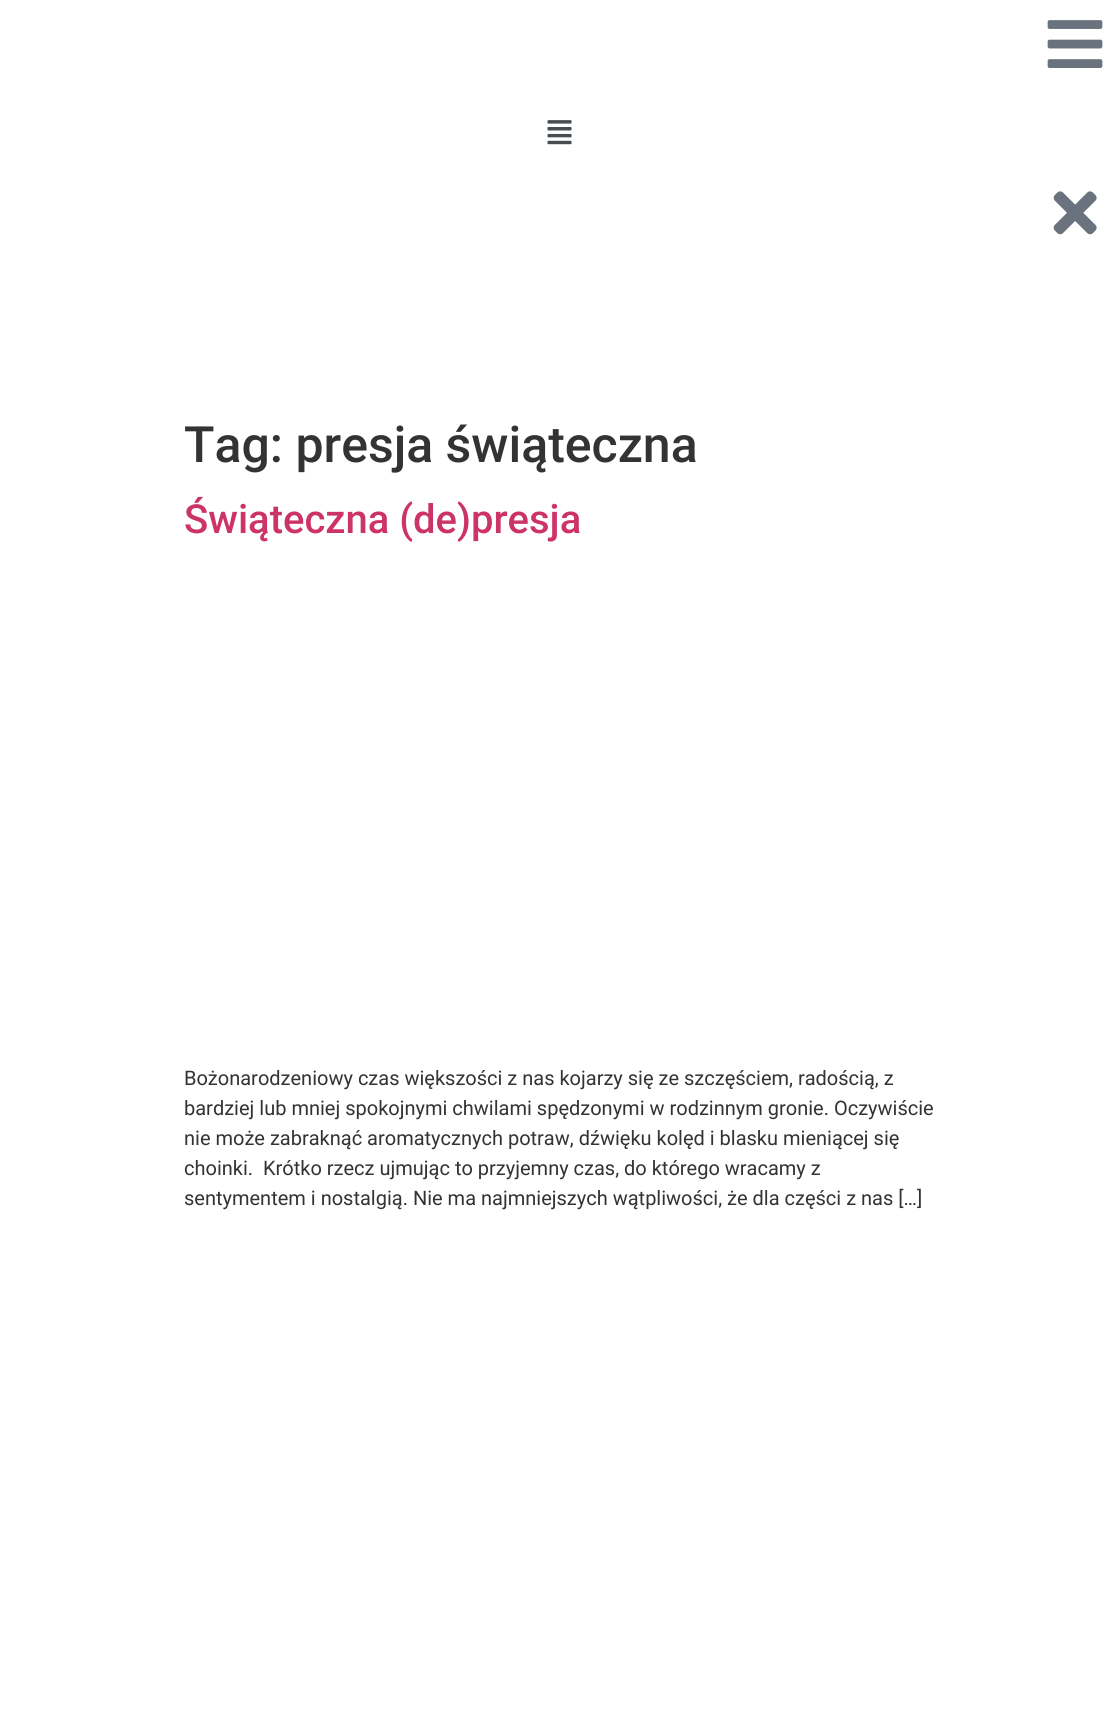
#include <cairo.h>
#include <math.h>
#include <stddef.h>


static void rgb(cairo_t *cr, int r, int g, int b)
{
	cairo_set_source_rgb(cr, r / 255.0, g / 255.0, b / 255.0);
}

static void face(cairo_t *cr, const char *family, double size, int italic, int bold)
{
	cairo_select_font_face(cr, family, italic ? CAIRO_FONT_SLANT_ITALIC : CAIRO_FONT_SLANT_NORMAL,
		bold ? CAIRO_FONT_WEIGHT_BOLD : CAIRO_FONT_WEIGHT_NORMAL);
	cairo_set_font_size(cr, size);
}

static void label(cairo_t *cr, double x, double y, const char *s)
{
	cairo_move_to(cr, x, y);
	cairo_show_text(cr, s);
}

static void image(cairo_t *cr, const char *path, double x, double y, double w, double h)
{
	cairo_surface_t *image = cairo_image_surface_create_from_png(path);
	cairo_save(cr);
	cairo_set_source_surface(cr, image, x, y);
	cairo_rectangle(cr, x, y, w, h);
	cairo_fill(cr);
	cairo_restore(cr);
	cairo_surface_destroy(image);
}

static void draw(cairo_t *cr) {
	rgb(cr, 255, 255, 255);
	cairo_paint(cr);
	image(cr, "image0.png", 1047, 20, 56, 48);
	image(cr, "image1.png", 547, 120, 25, 25);
	image(cr, "image2.png", 1053, 191, 44, 44);
	face(cr, "Roboto Medium", 50, 0, 0);
	rgb(cr, 51, 51, 51);
	label(cr, 184, 462, "Tag: presja świąteczna");
	face(cr, "Roboto Medium", 40, 0, 0);
	rgb(cr, 204, 51, 102);
	label(cr, 184, 533, "Świąteczna (de)presja");
	face(cr, "Roboto", 20, 0, 0);
	rgb(cr, 51, 51, 51);
	label(cr, 184, 1085, "Bożonarodzeniowy czas większości z nas kojarzy się ze szczęściem, radością, z");
	label(cr, 184, 1115, "bardziej lub mniej spokojnymi chwilami spędzonymi w rodzinnym gronie. Oczywiście");
	label(cr, 184, 1145, "nie może zabraknąć aromatycznych potraw, dźwięku kolęd i blasku mieniącej się");
	label(cr, 184, 1175, "choinki.  Krótko rzecz ujmując to przyjemny czas, do którego wracamy z");
	label(cr, 184, 1205, "sentymentem i nostalgią. Nie ma najmniejszych wątpliwości, że dla części z nas […]");
}

int main(void) {
	cairo_surface_t *surface = cairo_image_surface_create(CAIRO_FORMAT_RGB24, 1118, 1715);
	cairo_t *cr = cairo_create(surface);
	cairo_font_options_t *options = cairo_font_options_create();
	cairo_font_options_set_hint_metrics(options, CAIRO_HINT_METRICS_OFF);
	cairo_font_options_set_hint_style(options, CAIRO_HINT_STYLE_NONE);
	cairo_set_font_options(cr, options);
	cairo_set_miter_limit(cr, 4);
	draw(cr);
	cairo_surface_write_to_png(surface, "render.png");
	cairo_font_options_destroy(options);
	cairo_destroy(cr);
	cairo_surface_destroy(surface);
	return 0;
}
